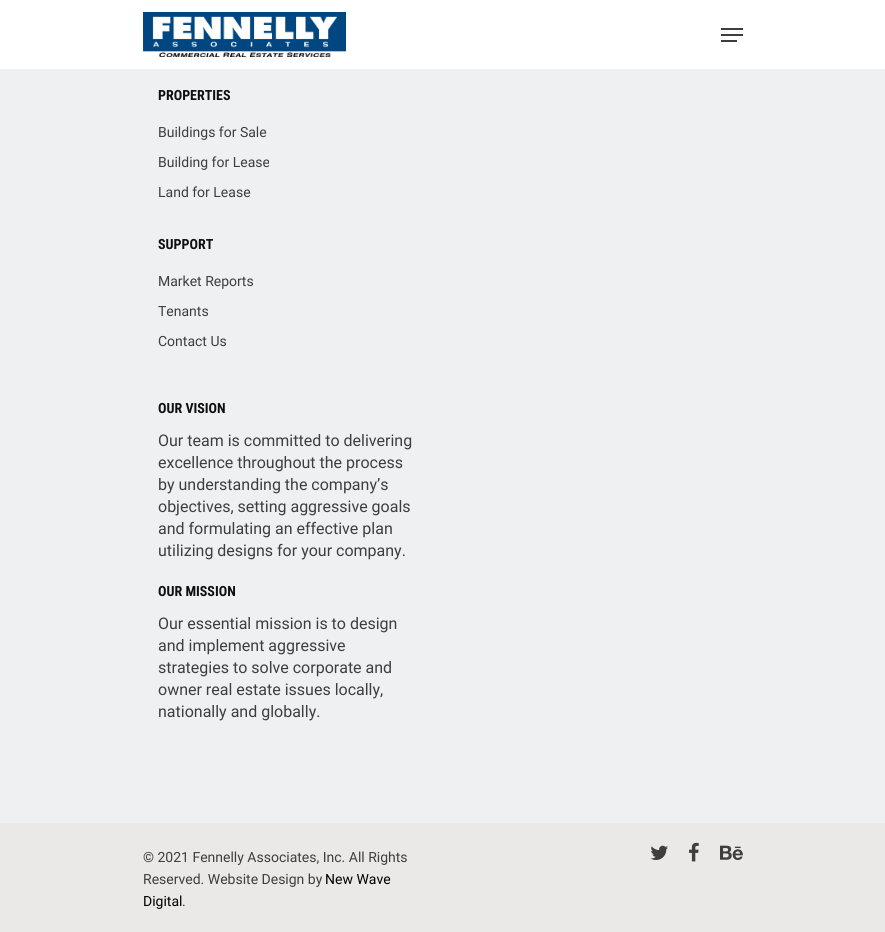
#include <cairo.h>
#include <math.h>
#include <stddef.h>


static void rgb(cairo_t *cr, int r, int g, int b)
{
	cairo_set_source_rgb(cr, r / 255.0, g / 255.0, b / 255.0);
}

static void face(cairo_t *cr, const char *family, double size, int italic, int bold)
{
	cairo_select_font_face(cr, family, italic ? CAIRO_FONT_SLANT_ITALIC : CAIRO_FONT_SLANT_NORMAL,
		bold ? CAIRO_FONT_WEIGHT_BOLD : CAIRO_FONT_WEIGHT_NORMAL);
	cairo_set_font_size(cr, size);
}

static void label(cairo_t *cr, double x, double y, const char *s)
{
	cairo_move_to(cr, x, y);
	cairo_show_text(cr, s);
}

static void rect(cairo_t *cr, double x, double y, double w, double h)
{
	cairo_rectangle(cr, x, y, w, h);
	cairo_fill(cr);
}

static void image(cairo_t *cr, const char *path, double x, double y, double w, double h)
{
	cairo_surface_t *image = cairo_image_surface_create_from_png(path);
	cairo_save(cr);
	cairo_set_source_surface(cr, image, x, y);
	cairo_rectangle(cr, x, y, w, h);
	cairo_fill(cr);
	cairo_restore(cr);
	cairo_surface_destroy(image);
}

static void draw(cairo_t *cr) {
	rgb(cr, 239, 240, 242);
	cairo_paint(cr);
	rgb(cr, 255, 255, 255);
	rect(cr, 0, 0, 885, 69);
	image(cr, "image0.png", 143, 12, 203, 45);
	rgb(cr, 63, 62, 62);
	rect(cr, 721, 28, 22, 2);
	rect(cr, 721, 40, 16, 2);
	rect(cr, 721, 34, 22, 2);
	face(cr, "Roboto Condensed", 14, 0, 1);
	rgb(cr, 15, 15, 15);
	label(cr, 158, 100, "PROPERTIES");
	face(cr, "Roboto", 14, 0, 0);
	rgb(cr, 63, 62, 62);
	label(cr, 158, 137, "Buildings for Sale");
	label(cr, 158, 167, "Building for Lease");
	label(cr, 158, 197, "Land for Lease");
	face(cr, "Roboto Condensed", 14, 0, 1);
	rgb(cr, 15, 15, 15);
	label(cr, 158, 249, "SUPPORT");
	face(cr, "Roboto", 14, 0, 0);
	rgb(cr, 63, 62, 62);
	label(cr, 158, 286, "Market Reports");
	label(cr, 158, 316, "Tenants");
	label(cr, 158, 346, "Contact Us");
	face(cr, "Roboto Condensed", 14, 0, 1);
	rgb(cr, 15, 15, 15);
	label(cr, 158, 413, "OUR VISION");
	face(cr, "Roboto", 16, 0, 0);
	rgb(cr, 63, 62, 62);
	label(cr, 158, 446, "Our team is committed to delivering");
	label(cr, 158, 468, "excellence throughout the process");
	label(cr, 158, 490, "by understanding the company’s");
	label(cr, 158, 512, "objectives, setting aggressive goals");
	label(cr, 158, 534, "and formulating an effective plan");
	label(cr, 158, 556, "utilizing designs for your company.");
	face(cr, "Roboto Condensed", 14, 0, 1);
	rgb(cr, 15, 15, 15);
	label(cr, 158, 596, "OUR MISSION");
	face(cr, "Roboto", 16, 0, 0);
	rgb(cr, 63, 62, 62);
	label(cr, 158, 629, "Our essential mission is to design");
	label(cr, 158, 651, "and implement aggressive");
	label(cr, 158, 673, "strategies to solve corporate and");
	label(cr, 158, 695, "owner real estate issues locally,");
	label(cr, 158, 717, "nationally and globally.");
	rgb(cr, 234, 233, 232);
	rect(cr, 0, 823, 885, 109);
	face(cr, "Roboto", 14, 0, 0);
	rgb(cr, 63, 62, 62);
	label(cr, 143, 862, "© 2021 Fennelly Associates, Inc. All Rights");
	label(cr, 143, 884, "Reserved. Website Design by");
	rgb(cr, 0, 0, 0);
	label(cr, 325, 884, "New Wave");
	label(cr, 143, 906, "Digital");
	rgb(cr, 63, 62, 62);
	label(cr, 182, 906, ".");
	image(cr, "image1.png", 650, 845, 18, 15);
	image(cr, "image2.png", 689, 842, 10, 20);
	image(cr, "image3.png", 720, 845, 23, 15);
}

int main(void) {
	cairo_surface_t *surface = cairo_image_surface_create(CAIRO_FORMAT_RGB24, 885, 932);
	cairo_t *cr = cairo_create(surface);
	cairo_font_options_t *options = cairo_font_options_create();
	cairo_font_options_set_hint_metrics(options, CAIRO_HINT_METRICS_OFF);
	cairo_font_options_set_hint_style(options, CAIRO_HINT_STYLE_NONE);
	cairo_set_font_options(cr, options);
	cairo_set_miter_limit(cr, 4);
	draw(cr);
	cairo_surface_write_to_png(surface, "render.png");
	cairo_font_options_destroy(options);
	cairo_destroy(cr);
	cairo_surface_destroy(surface);
	return 0;
}
